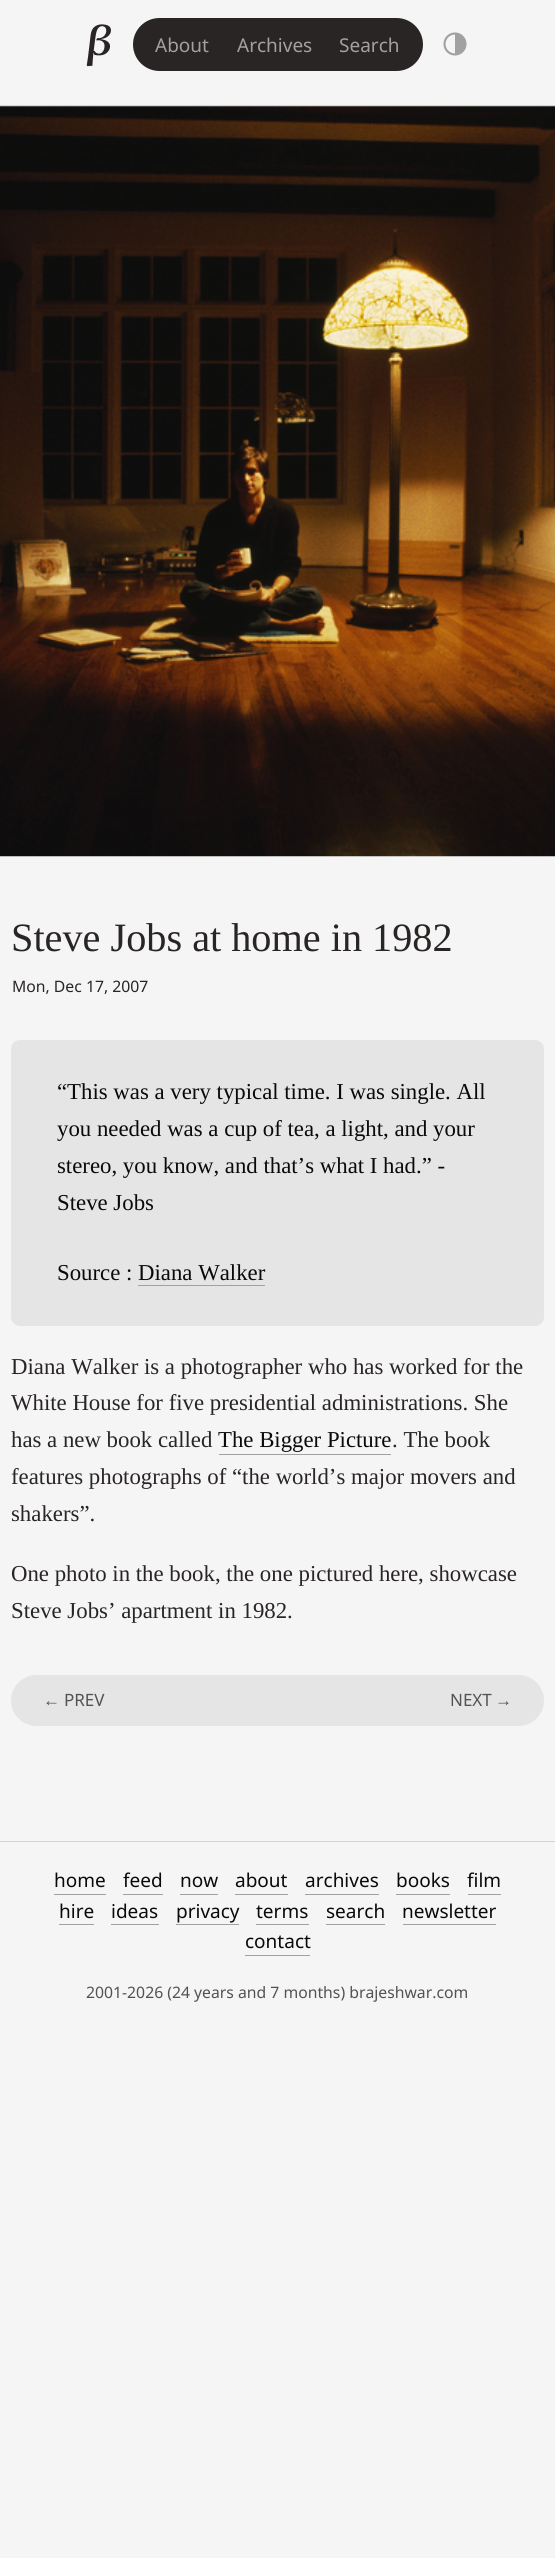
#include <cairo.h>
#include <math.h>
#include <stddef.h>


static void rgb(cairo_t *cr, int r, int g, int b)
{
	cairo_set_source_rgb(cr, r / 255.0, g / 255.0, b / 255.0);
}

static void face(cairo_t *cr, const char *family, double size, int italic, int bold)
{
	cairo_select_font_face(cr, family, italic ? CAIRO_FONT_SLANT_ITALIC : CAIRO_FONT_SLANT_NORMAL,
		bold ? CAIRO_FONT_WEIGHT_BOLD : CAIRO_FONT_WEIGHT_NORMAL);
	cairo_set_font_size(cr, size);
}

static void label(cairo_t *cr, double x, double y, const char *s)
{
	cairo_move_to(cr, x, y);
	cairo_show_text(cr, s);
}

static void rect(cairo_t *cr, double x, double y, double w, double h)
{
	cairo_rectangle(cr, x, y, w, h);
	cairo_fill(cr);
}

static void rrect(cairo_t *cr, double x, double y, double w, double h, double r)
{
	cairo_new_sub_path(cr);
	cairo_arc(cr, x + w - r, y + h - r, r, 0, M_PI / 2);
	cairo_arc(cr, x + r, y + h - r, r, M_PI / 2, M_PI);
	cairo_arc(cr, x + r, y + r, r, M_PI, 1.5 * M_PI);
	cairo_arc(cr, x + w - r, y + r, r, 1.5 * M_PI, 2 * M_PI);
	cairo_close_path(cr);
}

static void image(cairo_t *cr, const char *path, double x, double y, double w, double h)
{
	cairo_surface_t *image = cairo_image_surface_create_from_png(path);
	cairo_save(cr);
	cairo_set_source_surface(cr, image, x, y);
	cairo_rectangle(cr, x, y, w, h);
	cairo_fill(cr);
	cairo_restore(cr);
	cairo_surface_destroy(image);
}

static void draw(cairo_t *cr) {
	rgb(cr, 245, 245, 245);
	cairo_paint(cr);
	rgb(cr, 212, 212, 212);
	rect(cr, 0, 105, 555, 1);
	image(cr, "image0.png", 86, 24, 25, 43);
	rgb(cr, 41, 37, 36);
	rrect(cr, 133, 18, 290, 53, 26.5);
	cairo_fill(cr);
	face(cr, "Noto Sans", 19, 0, 0);
	rgb(cr, 161, 161, 161);
	label(cr, 155, 52, "About");
	label(cr, 237, 52, "Archives");
	label(cr, 339, 52, "Search");
	cairo_new_path(cr);
	cairo_arc(cr, 455, 44, 10.5, 0, 2 * M_PI);
	cairo_set_line_width(cr, 2.1);
	cairo_stroke(cr);
	cairo_new_path(cr);
	cairo_move_to(cr, 455, 33.5);
	cairo_line_to(cr, 455, 54);
	cairo_curve_to(cr, 468.5, 54, 468.5, 33.5, 455, 33.5);
	cairo_close_path(cr);
	cairo_fill(cr);
	image(cr, "image1.png", 0, 106, 555, 751);
	face(cr, "Liberation Serif", 40.25, 0, 0);
	rgb(cr, 41, 37, 36);
	label(cr, 11, 951, "Steve Jobs at home in 1982");
	face(cr, "Noto Sans", 15.75, 0, 0);
	label(cr, 12, 992, "Mon, Dec 17, 2007");
	rgb(cr, 229, 229, 229);
	rrect(cr, 11, 1040, 533, 286, 9);
	cairo_fill(cr);
	face(cr, "Liberation Serif", 22.8, 0, 0);
	rgb(cr, 10, 10, 10);
	label(cr, 57, 1099, "“This was a very typical time. I was single. All");
	label(cr, 57, 1136, "you needed was a cup of tea, a light, and your");
	label(cr, 57, 1173, "stereo, you know, and that’s what I had.” -");
	label(cr, 57, 1210, "Steve Jobs");
	label(cr, 57, 1280, "Source : Diana Walker");
	rgb(cr, 161, 161, 161);
	rect(cr, 138, 1285, 127, 1);
	rgb(cr, 41, 37, 36);
	label(cr, 11, 1374, "Diana Walker is a photographer who has worked for the");
	label(cr, 11, 1410, "White House for five presidential administrations. She");
	label(cr, 11, 1447, "has a new book called");
	rgb(cr, 10, 10, 10);
	label(cr, 218, 1447, "The Bigger Picture");
	rgb(cr, 161, 161, 161);
	rect(cr, 219, 1454, 172, 1);
	rgb(cr, 41, 37, 36);
	label(cr, 392, 1447, ". The book");
	label(cr, 11, 1484, "features photographs of “the world’s major movers and");
	label(cr, 11, 1521, "shakers”.");
	label(cr, 11, 1581, "One photo in the book, the one pictured here, showcase");
	label(cr, 11, 1618, "Steve Jobs’ apartment in 1982.");
	rgb(cr, 229, 229, 229);
	rrect(cr, 11, 1675, 533, 51, 25.5);
	cairo_fill(cr);
	face(cr, "Liberation Sans", 17, 0, 0);
	rgb(cr, 82, 82, 82);
	label(cr, 43, 1706, "←");
	face(cr, "Noto Sans", 17, 0, 0);
	label(cr, 64, 1706, "PREV");
	label(cr, 450, 1706, "NEXT");
	face(cr, "Liberation Sans", 17, 0, 0);
	label(cr, 495, 1706, "→");
	rgb(cr, 212, 212, 212);
	rect(cr, 0, 1841, 555, 1);
	face(cr, "Noto Sans", 19, 0, 0);
	rgb(cr, 10, 10, 10);
	label(cr, 54, 1887, "home");
	rgb(cr, 161, 161, 161);
	rect(cr, 54, 1894, 52, 1);
	rgb(cr, 10, 10, 10);
	label(cr, 123, 1887, "feed");
	rgb(cr, 161, 161, 161);
	rect(cr, 123, 1894, 40, 1);
	rgb(cr, 10, 10, 10);
	label(cr, 180, 1887, "now");
	rgb(cr, 161, 161, 161);
	rect(cr, 180, 1894, 38, 1);
	rgb(cr, 10, 10, 10);
	label(cr, 235, 1887, "about");
	rgb(cr, 161, 161, 161);
	rect(cr, 235, 1894, 53, 1);
	rgb(cr, 10, 10, 10);
	label(cr, 305, 1887, "archives");
	rgb(cr, 161, 161, 161);
	rect(cr, 305, 1894, 74, 1);
	rgb(cr, 10, 10, 10);
	label(cr, 396, 1887, "books");
	rgb(cr, 161, 161, 161);
	rect(cr, 396, 1894, 54, 1);
	rgb(cr, 10, 10, 10);
	label(cr, 467, 1887, "film");
	rgb(cr, 161, 161, 161);
	rect(cr, 468, 1894, 33, 1);
	rgb(cr, 10, 10, 10);
	label(cr, 59, 1918, "hire");
	rgb(cr, 161, 161, 161);
	rect(cr, 59, 1924, 35, 1);
	rgb(cr, 10, 10, 10);
	label(cr, 111, 1918, "ideas");
	rgb(cr, 161, 161, 161);
	rect(cr, 111, 1924, 48, 1);
	rgb(cr, 10, 10, 10);
	label(cr, 176, 1918, "privacy");
	rgb(cr, 161, 161, 161);
	rect(cr, 176, 1924, 63, 1);
	rgb(cr, 10, 10, 10);
	label(cr, 256, 1918, "terms");
	rgb(cr, 161, 161, 161);
	rect(cr, 256, 1924, 53, 1);
	rgb(cr, 10, 10, 10);
	label(cr, 326, 1918, "search");
	rgb(cr, 161, 161, 161);
	rect(cr, 326, 1924, 59, 1);
	rgb(cr, 10, 10, 10);
	label(cr, 402, 1918, "newsletter");
	rgb(cr, 161, 161, 161);
	rect(cr, 403, 1924, 93, 1);
	rgb(cr, 10, 10, 10);
	label(cr, 245, 1948, "contact");
	rgb(cr, 161, 161, 161);
	rect(cr, 245, 1955, 65, 1);
	face(cr, "Noto Sans", 15.75, 0, 0);
	rgb(cr, 82, 82, 82);
	label(cr, 86, 1998, "2001-2026 (24 years and 7 months) brajeshwar.com");
}

int main(void) {
	cairo_surface_t *surface = cairo_image_surface_create(CAIRO_FORMAT_RGB24, 555, 2558);
	cairo_t *cr = cairo_create(surface);
	cairo_font_options_t *options = cairo_font_options_create();
	cairo_font_options_set_hint_metrics(options, CAIRO_HINT_METRICS_OFF);
	cairo_font_options_set_hint_style(options, CAIRO_HINT_STYLE_NONE);
	cairo_set_font_options(cr, options);
	cairo_set_miter_limit(cr, 4);
	draw(cr);
	cairo_surface_write_to_png(surface, "render.png");
	cairo_font_options_destroy(options);
	cairo_destroy(cr);
	cairo_surface_destroy(surface);
	return 0;
}
